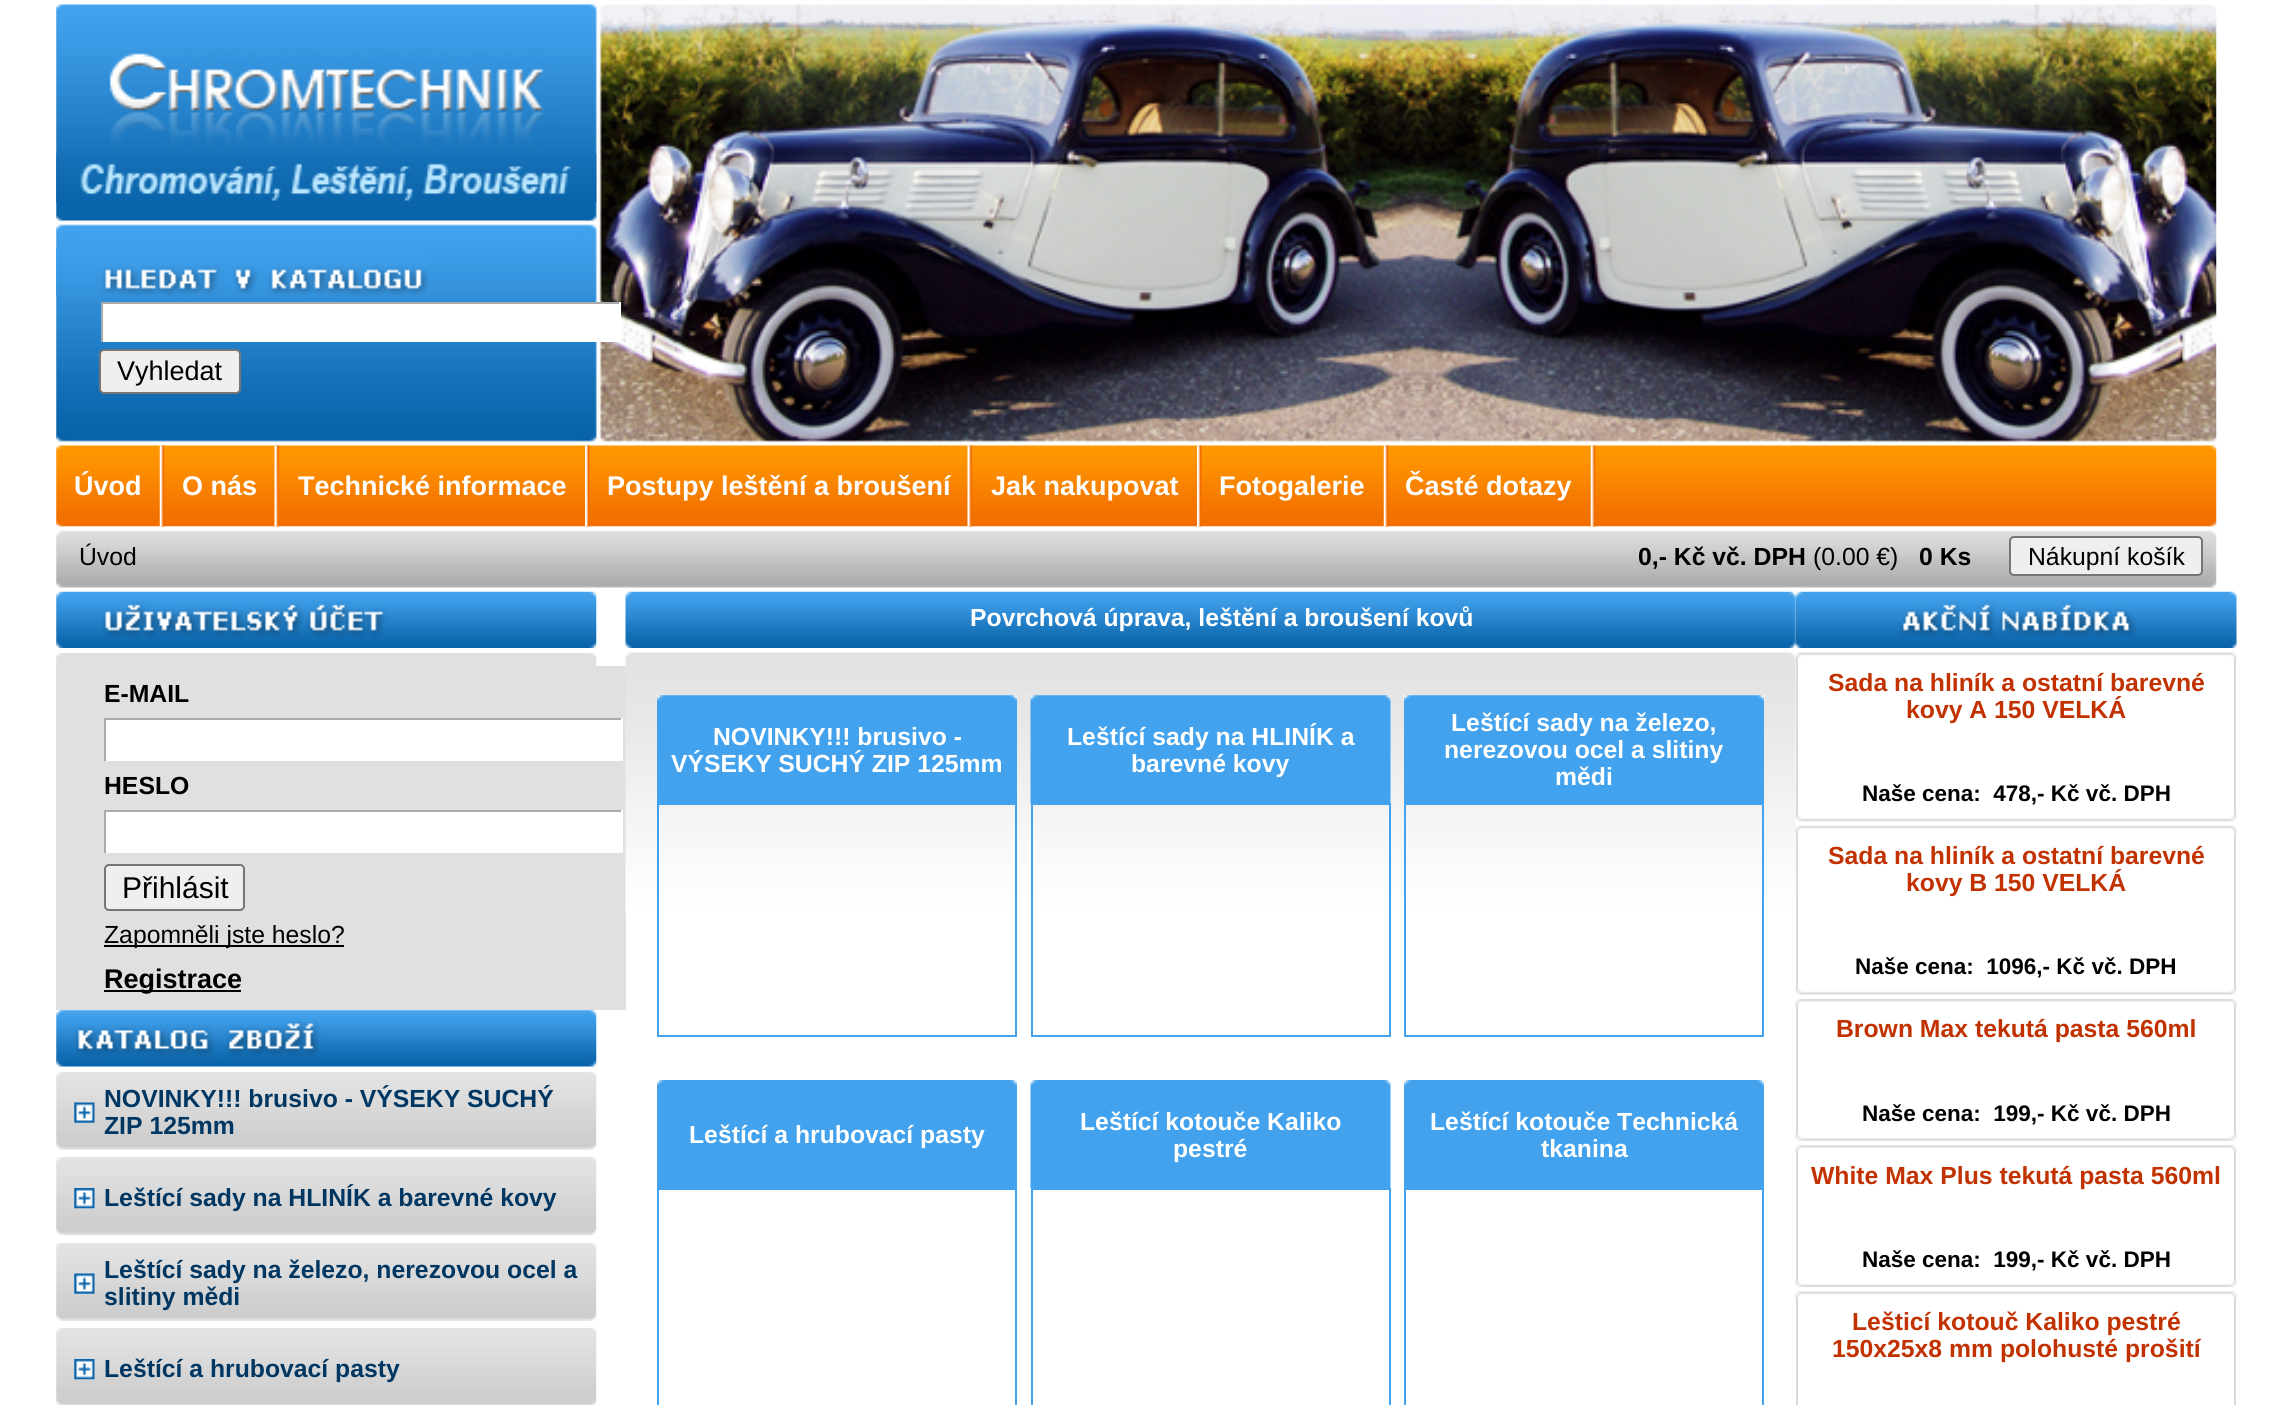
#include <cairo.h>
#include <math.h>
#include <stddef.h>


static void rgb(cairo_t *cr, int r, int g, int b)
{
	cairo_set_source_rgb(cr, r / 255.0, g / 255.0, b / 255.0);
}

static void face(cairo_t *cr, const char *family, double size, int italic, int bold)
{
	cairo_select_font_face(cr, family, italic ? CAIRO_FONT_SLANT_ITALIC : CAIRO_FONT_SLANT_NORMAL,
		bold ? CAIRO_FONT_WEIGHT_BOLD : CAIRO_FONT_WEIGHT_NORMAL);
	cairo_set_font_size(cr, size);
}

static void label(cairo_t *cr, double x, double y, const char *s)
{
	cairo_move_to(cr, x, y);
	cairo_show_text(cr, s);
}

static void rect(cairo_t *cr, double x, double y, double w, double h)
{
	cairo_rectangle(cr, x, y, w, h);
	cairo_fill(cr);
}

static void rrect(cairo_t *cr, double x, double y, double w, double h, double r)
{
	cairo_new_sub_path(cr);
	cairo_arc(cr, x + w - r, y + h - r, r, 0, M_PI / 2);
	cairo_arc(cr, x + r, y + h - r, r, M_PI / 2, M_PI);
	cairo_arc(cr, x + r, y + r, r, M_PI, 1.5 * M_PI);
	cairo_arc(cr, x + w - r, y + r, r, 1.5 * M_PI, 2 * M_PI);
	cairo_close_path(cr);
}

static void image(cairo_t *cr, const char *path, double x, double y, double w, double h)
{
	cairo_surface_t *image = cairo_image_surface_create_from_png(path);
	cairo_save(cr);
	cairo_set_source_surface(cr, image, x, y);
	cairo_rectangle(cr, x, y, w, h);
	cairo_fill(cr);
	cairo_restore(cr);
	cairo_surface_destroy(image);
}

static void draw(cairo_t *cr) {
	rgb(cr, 255, 255, 255);
	cairo_paint(cr);
	image(cr, "image0.png", 56, 4, 2161, 441);
	image(cr, "image1.png", 56, 153, 541, 50);
	image(cr, "image2.png", 56, 247, 373, 50);
	rgb(cr, 255, 255, 255);
	rect(cr, 103, 304, 516, 38);
	rgb(cr, 170, 170, 170);
	rect(cr, 101, 302, 520, 2);
	rgb(cr, 255, 255, 255);
	rect(cr, 619, 302, 2, 40);
	rgb(cr, 170, 170, 170);
	rect(cr, 101, 302, 2, 40);
	rgb(cr, 239, 239, 239);
	rrect(cr, 100, 350, 140, 43, 4);
	cairo_fill_preserve(cr);
	rgb(cr, 118, 118, 118);
	cairo_stroke(cr);
	face(cr, "Liberation Sans", 27, 0, 0);
	rgb(cr, 0, 0, 0);
	label(cr, 117, 380, "Vyhledat");
	image(cr, "image3.png", 56, 445, 2161, 82);
	face(cr, "Liberation Sans", 27, 0, 1);
	rgb(cr, 255, 255, 255);
	label(cr, 74, 495, "Úvod");
	image(cr, "image7.png", 56, 526, 2161, 62);
	image(cr, "image4.png", 159, 445, 6, 82);
	label(cr, 182, 495, "O nás");
	image(cr, "image5.png", 274, 445, 5, 82);
	label(cr, 298, 495, "Technické informace");
	image(cr, "image6.png", 585, 445, 5, 82);
	label(cr, 607, 495, "Postupy leštění a broušení");
	image(cr, "image5.png", 967, 445, 5, 82);
	label(cr, 991, 495, "Jak nakupovat");
	image(cr, "image6.png", 1197, 445, 5, 82);
	label(cr, 1219, 495, "Fotogalerie");
	image(cr, "image4.png", 1383, 445, 6, 82);
	label(cr, 1405, 495, "Časté dotazy");
	image(cr, "image4.png", 1590, 445, 6, 82);
	face(cr, "Liberation Sans", 24.75, 0, 0);
	rgb(cr, 0, 0, 0);
	label(cr, 79, 565, "Úvod");
	face(cr, "Liberation Sans", 24.75, 0, 1);
	label(cr, 1638, 565, "0,- Kč vč. DPH");
	face(cr, "Liberation Sans", 24.75, 0, 0);
	label(cr, 1813, 565, "(0.00 €)");
	face(cr, "Liberation Sans", 24.75, 0, 1);
	label(cr, 1919, 565, "0 Ks");
	rgb(cr, 239, 239, 239);
	rrect(cr, 2010, 537, 192, 38, 4);
	cairo_fill_preserve(cr);
	rgb(cr, 118, 118, 118);
	cairo_stroke(cr);
	face(cr, "Liberation Sans", 24.75, 0, 0);
	rgb(cr, 0, 0, 0);
	label(cr, 2028, 565, "Nákupní košík");
	image(cr, "image8.png", 56, 591, 541, 57);
	image(cr, "image9.png", 56, 652, 541, 14);
	rgb(cr, 255, 255, 255);
	rect(cr, 56, 652, 540, 1);
	rgb(cr, 224, 224, 224);
	rect(cr, 56, 666, 570, 344);
	face(cr, "Liberation Sans", 24.75, 0, 1);
	rgb(cr, 0, 0, 0);
	label(cr, 104, 702, "E-MAIL");
	rgb(cr, 255, 255, 255);
	rect(cr, 106, 720, 515, 41);
	rgb(cr, 170, 170, 170);
	rect(cr, 104, 718, 519, 2);
	rgb(cr, 255, 255, 255);
	rect(cr, 621, 718, 2, 43);
	rgb(cr, 170, 170, 170);
	rect(cr, 104, 718, 2, 43);
	rgb(cr, 0, 0, 0);
	label(cr, 104, 794, "HESLO");
	rgb(cr, 255, 255, 255);
	rect(cr, 106, 812, 515, 41);
	rgb(cr, 170, 170, 170);
	rect(cr, 104, 810, 519, 2);
	rgb(cr, 255, 255, 255);
	rect(cr, 621, 810, 2, 43);
	rgb(cr, 170, 170, 170);
	rect(cr, 104, 810, 2, 43);
	rgb(cr, 239, 239, 239);
	rrect(cr, 105, 865, 139, 45, 4);
	cairo_fill_preserve(cr);
	rgb(cr, 118, 118, 118);
	cairo_stroke(cr);
	face(cr, "Liberation Sans", 30, 0, 0);
	rgb(cr, 0, 0, 0);
	label(cr, 122, 898, "Přihlásit");
	rect(cr, 104, 945, 240, 2);
	face(cr, "Liberation Sans", 24.75, 0, 0);
	label(cr, 104, 943, "Zapomněli jste heslo?");
	rect(cr, 104, 990, 137, 2);
	face(cr, "Liberation Sans", 27, 0, 1);
	label(cr, 104, 988, "Registrace");
	image(cr, "image10.png", 56, 1010, 541, 57);
	image(cr, "image11.png", 56, 1071, 541, 79);
	rgb(cr, 255, 255, 255);
	rect(cr, 56, 1071, 540, 1);
	image(cr, "image12.png", 74, 1102, 21, 21);
	face(cr, "Liberation Sans", 24.75, 0, 1);
	rgb(cr, 0, 55, 98);
	label(cr, 104, 1107, "NOVINKY!!! brusivo - VÝSEKY SUCHÝ");
	label(cr, 104, 1134, "ZIP 125mm");
	image(cr, "image13.png", 56, 1156, 541, 80);
	rgb(cr, 255, 255, 255);
	rect(cr, 56, 1156, 540, 1);
	image(cr, "image14.png", 74, 1188, 21, 21);
	rgb(cr, 0, 55, 98);
	label(cr, 104, 1206, "Leštící sady na HLINÍK a barevné kovy");
	image(cr, "image11.png", 56, 1242, 541, 79);
	rgb(cr, 255, 255, 255);
	rect(cr, 56, 1242, 540, 1);
	image(cr, "image12.png", 74, 1273, 21, 21);
	rgb(cr, 0, 55, 98);
	label(cr, 104, 1278, "Leštící sady na železo, nerezovou ocel a");
	label(cr, 104, 1305, "slitiny mědi");
	image(cr, "image15.png", 56, 1327, 541, 78);
	rgb(cr, 255, 255, 255);
	rect(cr, 56, 1327, 540, 1);
	image(cr, "image14.png", 74, 1359, 21, 21);
	rgb(cr, 0, 55, 98);
	label(cr, 104, 1377, "Leštící a hrubovací pasty");
	image(cr, "image16.png", 625, 591, 1171, 57);
	rgb(cr, 255, 255, 255);
	label(cr, 970, 626, "Povrchová úprava, leštění a broušení kovů");
	image(cr, "image17.png", 625, 652, 1171, 262);
	image(cr, "image18.png", 657, 695, 360, 108);
	label(cr, 713, 745, "NOVINKY!!! brusivo -");
	label(cr, 671, 772, "VÝSEKY SUCHÝ ZIP 125mm");
	cairo_rectangle(cr, 658, 804, 358, 232);
	rgb(cr, 66, 162, 237);
	cairo_stroke(cr);
	image(cr, "image19.png", 1030, 695, 361, 109);
	rgb(cr, 255, 255, 255);
	label(cr, 1067, 745, "Leštící sady na HLINÍK a");
	label(cr, 1131, 772, "barevné kovy");
	cairo_rectangle(cr, 1032, 804, 358, 232);
	rgb(cr, 66, 162, 237);
	cairo_stroke(cr);
	image(cr, "image20.png", 1404, 695, 360, 108);
	rgb(cr, 255, 255, 255);
	label(cr, 1451, 731, "Leštící sady na železo,");
	label(cr, 1444, 758, "nerezovou ocel a slitiny");
	label(cr, 1555, 785, "mědi");
	cairo_rectangle(cr, 1405, 804, 358, 232);
	rgb(cr, 66, 162, 237);
	cairo_stroke(cr);
	image(cr, "image21.png", 657, 1080, 360, 108);
	rgb(cr, 255, 255, 255);
	label(cr, 689, 1143, "Leštící a hrubovací pasty");
	cairo_rectangle(cr, 658, 1189, 358, 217);
	rgb(cr, 66, 162, 237);
	cairo_stroke(cr);
	image(cr, "image22.png", 1030, 1080, 361, 108);
	rgb(cr, 255, 255, 255);
	label(cr, 1080, 1130, "Leštící kotouče Kaliko");
	label(cr, 1173, 1157, "pestré");
	cairo_rectangle(cr, 1032, 1189, 358, 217);
	rgb(cr, 66, 162, 237);
	cairo_stroke(cr);
	image(cr, "image21.png", 1404, 1080, 360, 108);
	rgb(cr, 255, 255, 255);
	label(cr, 1430, 1130, "Leštící kotouče Technická");
	label(cr, 1541, 1157, "tkanina");
	cairo_rectangle(cr, 1405, 1189, 358, 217);
	rgb(cr, 66, 162, 237);
	cairo_stroke(cr);
	image(cr, "image23.png", 1795, 591, 442, 57);
	image(cr, "image24.png", 1795, 652, 442, 8);
	rgb(cr, 217, 217, 217);
	rect(cr, 2234, 659, 2, 156);
	rect(cr, 1796, 659, 2, 156);
	rgb(cr, 194, 50, 0);
	label(cr, 1828, 691, "Sada na hliník a ostatní barevné");
	label(cr, 1906, 718, "kovy A 150 VELKÁ");
	face(cr, "Liberation Sans", 22.5, 0, 1);
	rgb(cr, 0, 0, 0);
	label(cr, 1862, 801, "Naše cena:  478,- Kč vč. DPH");
	image(cr, "image25.png", 1795, 814, 442, 8);
	image(cr, "image26.png", 1795, 825, 442, 8);
	rgb(cr, 217, 217, 217);
	rect(cr, 2234, 833, 2, 155);
	rect(cr, 1796, 833, 2, 155);
	face(cr, "Liberation Sans", 24.75, 0, 1);
	rgb(cr, 194, 50, 0);
	label(cr, 1828, 864, "Sada na hliník a ostatní barevné");
	label(cr, 1906, 891, "kovy B 150 VELKÁ");
	face(cr, "Liberation Sans", 22.5, 0, 1);
	rgb(cr, 0, 0, 0);
	label(cr, 1855, 974, "Naše cena:  1096,- Kč vč. DPH");
	image(cr, "image27.png", 1795, 987, 442, 8);
	image(cr, "image28.png", 1795, 999, 442, 7);
	rgb(cr, 217, 217, 217);
	rect(cr, 2234, 1006, 2, 128);
	rect(cr, 1796, 1006, 2, 128);
	face(cr, "Liberation Sans", 24.75, 0, 1);
	rgb(cr, 194, 50, 0);
	label(cr, 1836, 1037, "Brown Max tekutá pasta 560ml");
	face(cr, "Liberation Sans", 22.5, 0, 1);
	rgb(cr, 0, 0, 0);
	label(cr, 1862, 1121, "Naše cena:  199,- Kč vč. DPH");
	image(cr, "image29.png", 1795, 1134, 442, 7);
	image(cr, "image30.png", 1795, 1145, 442, 7);
	rgb(cr, 217, 217, 217);
	rect(cr, 2234, 1152, 2, 128);
	rect(cr, 1796, 1152, 2, 128);
	face(cr, "Liberation Sans", 24.75, 0, 1);
	rgb(cr, 194, 50, 0);
	label(cr, 1811, 1184, "White Max Plus tekutá pasta 560ml");
	face(cr, "Liberation Sans", 22.5, 0, 1);
	rgb(cr, 0, 0, 0);
	label(cr, 1862, 1267, "Naše cena:  199,- Kč vč. DPH");
	image(cr, "image31.png", 1795, 1280, 442, 7);
	image(cr, "image32.png", 1795, 1291, 442, 8);
	rgb(cr, 217, 217, 217);
	rect(cr, 2234, 1298, 2, 107);
	rect(cr, 1796, 1298, 2, 107);
	face(cr, "Liberation Sans", 24.75, 0, 1);
	rgb(cr, 194, 50, 0);
	label(cr, 1852, 1330, "Lešticí kotouč Kaliko pestré");
	label(cr, 1832, 1357, "150x25x8 mm polohusté prošití");
}

int main(void) {
	cairo_surface_t *surface = cairo_image_surface_create(CAIRO_FORMAT_RGB24, 2271, 1405);
	cairo_t *cr = cairo_create(surface);
	cairo_font_options_t *options = cairo_font_options_create();
	cairo_font_options_set_hint_metrics(options, CAIRO_HINT_METRICS_OFF);
	cairo_font_options_set_hint_style(options, CAIRO_HINT_STYLE_NONE);
	cairo_set_font_options(cr, options);
	cairo_set_miter_limit(cr, 4);
	draw(cr);
	cairo_surface_write_to_png(surface, "render.png");
	cairo_font_options_destroy(options);
	cairo_destroy(cr);
	cairo_surface_destroy(surface);
	return 0;
}
